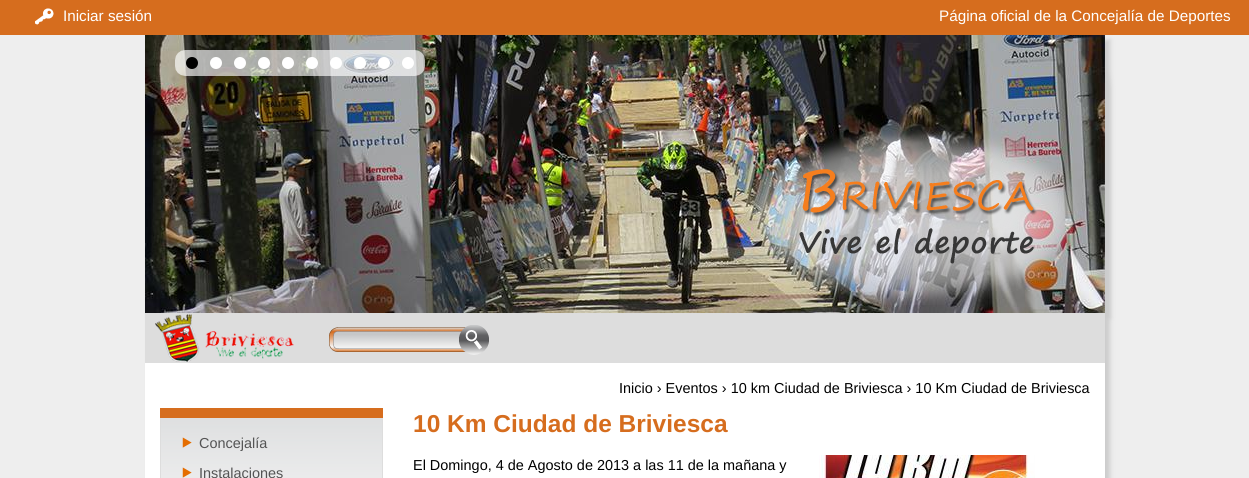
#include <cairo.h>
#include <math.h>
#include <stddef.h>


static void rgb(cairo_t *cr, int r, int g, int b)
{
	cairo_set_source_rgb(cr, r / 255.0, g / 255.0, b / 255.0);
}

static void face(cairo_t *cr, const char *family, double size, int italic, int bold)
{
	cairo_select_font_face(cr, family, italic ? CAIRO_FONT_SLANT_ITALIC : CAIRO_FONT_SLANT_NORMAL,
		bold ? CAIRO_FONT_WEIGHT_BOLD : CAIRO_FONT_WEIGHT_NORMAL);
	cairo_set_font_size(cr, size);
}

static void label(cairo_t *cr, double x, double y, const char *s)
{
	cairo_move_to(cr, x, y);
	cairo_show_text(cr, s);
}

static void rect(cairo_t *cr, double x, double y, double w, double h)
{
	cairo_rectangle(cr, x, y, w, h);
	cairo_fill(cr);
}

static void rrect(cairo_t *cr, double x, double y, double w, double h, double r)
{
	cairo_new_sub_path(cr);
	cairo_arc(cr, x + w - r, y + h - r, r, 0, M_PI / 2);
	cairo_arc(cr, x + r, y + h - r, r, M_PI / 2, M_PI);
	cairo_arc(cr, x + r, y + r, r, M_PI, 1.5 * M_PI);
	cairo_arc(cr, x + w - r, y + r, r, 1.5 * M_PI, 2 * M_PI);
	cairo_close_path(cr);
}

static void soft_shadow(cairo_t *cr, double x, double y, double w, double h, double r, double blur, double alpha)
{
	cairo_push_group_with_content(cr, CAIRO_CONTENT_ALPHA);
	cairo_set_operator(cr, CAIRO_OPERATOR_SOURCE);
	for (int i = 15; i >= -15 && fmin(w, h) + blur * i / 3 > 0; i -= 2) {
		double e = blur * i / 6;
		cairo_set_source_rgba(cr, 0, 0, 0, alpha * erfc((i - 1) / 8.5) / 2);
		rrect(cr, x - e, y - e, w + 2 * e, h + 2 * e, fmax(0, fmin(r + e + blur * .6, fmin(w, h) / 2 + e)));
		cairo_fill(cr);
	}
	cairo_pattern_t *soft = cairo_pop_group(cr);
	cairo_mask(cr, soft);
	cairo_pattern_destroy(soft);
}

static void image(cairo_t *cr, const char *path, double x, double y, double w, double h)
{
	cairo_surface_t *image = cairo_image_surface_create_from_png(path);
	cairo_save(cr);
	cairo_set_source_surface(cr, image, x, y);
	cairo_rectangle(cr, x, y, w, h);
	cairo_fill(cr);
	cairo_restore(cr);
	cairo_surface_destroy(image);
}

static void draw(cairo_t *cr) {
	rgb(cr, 238, 238, 238);
	cairo_paint(cr);
	rgb(cr, 214, 109, 30);
	rect(cr, 0, 0, 1249, 35);
	image(cr, "image0.png", 35, 8, 19, 17);
	face(cr, "Liberation Sans", 15.25, 0, 0);
	rgb(cr, 255, 255, 255);
	label(cr, 63, 21, "Iniciar sesión");
	label(cr, 939, 21, "Página oficial de la Concejalía de Deportes");
	rgb(cr, 204, 204, 204);
	soft_shadow(cr, 150, 40, 960, 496, 50, 2.5, 1);
	rgb(cr, 255, 255, 255);
	rect(cr, 145, 363, 960, 115);
	rgb(cr, 204, 204, 204);
	soft_shadow(cr, 150, 40, 960, 278, 0, 2.5, 1);
	image(cr, "image1.png", 145, 35, 960, 278);
	image(cr, "image2.png", 175, 50, 250, 26);
	rgb(cr, 0, 0, 0);
	cairo_arc(cr, 192, 63, 6, 0, 2 * M_PI);
	cairo_fill(cr);
	rgb(cr, 255, 255, 255);
	cairo_arc(cr, 216, 63, 6, 0, 2 * M_PI);
	cairo_fill(cr);
	cairo_arc(cr, 240, 63, 6, 0, 2 * M_PI);
	cairo_fill(cr);
	cairo_arc(cr, 264, 63, 6, 0, 2 * M_PI);
	cairo_fill(cr);
	cairo_arc(cr, 288, 63, 6, 0, 2 * M_PI);
	cairo_fill(cr);
	cairo_arc(cr, 312, 63, 6, 0, 2 * M_PI);
	cairo_fill(cr);
	cairo_arc(cr, 336, 63, 6, 0, 2 * M_PI);
	cairo_fill(cr);
	cairo_arc(cr, 360, 63, 6, 0, 2 * M_PI);
	cairo_fill(cr);
	cairo_arc(cr, 384, 63, 6, 0, 2 * M_PI);
	cairo_fill(cr);
	cairo_arc(cr, 408, 63, 6, 0, 2 * M_PI);
	cairo_fill(cr);
	image(cr, "image3.png", 751, 127, 328, 178);
	rgb(cr, 221, 221, 221);
	rect(cr, 145, 313, 960, 50);
	image(cr, "image4.png", 155, 314, 139, 48);
	image(cr, "image5.png", 329, 325, 160, 30);
	face(cr, "Liberation Sans", 14.45, 0, 0);
	rgb(cr, 0, 0, 0);
	label(cr, 619, 393, "Inicio › Eventos › 10 km Ciudad de Briviesca › 10 Km Ciudad de Briviesca");
	image(cr, "image6.png", 161, 418, 221, 60);
	rgb(cr, 214, 109, 30);
	rect(cr, 160, 408, 223, 10);
	rgb(cr, 221, 221, 221);
	cairo_set_fill_rule(cr, CAIRO_FILL_RULE_EVEN_ODD);
	cairo_new_path(cr);
	cairo_move_to(cr, 160, 418);
	cairo_line_to(cr, 383, 418);
	cairo_line_to(cr, 383, 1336);
	cairo_curve_to(cr, 383, 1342, 379, 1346, 373, 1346);
	cairo_line_to(cr, 170, 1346);
	cairo_curve_to(cr, 164, 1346, 160, 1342, 160, 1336);
	cairo_close_path(cr);
	cairo_move_to(cr, 161, 418);
	cairo_line_to(cr, 382, 418);
	cairo_line_to(cr, 382, 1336);
	cairo_curve_to(cr, 382, 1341, 378, 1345, 373, 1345);
	cairo_line_to(cr, 170, 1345);
	cairo_curve_to(cr, 165, 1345, 161, 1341, 161, 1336);
	cairo_close_path(cr);
	cairo_fill(cr);
	image(cr, "image7.png", 182, 437, 10, 11);
	rgb(cr, 84, 84, 84);
	label(cr, 199, 448, "Concejalía");
	image(cr, "image8.png", 182, 467, 10, 11);
	label(cr, 199, 478, "Instalaciones");
	face(cr, "Liberation Sans", 24.5, 0, 1);
	rgb(cr, 214, 109, 30);
	label(cr, 413, 432, "10 Km Ciudad de Briviesca");
	face(cr, "Liberation Sans", 14.45, 0, 0);
	rgb(cr, 0, 0, 0);
	label(cr, 413, 470, "El Domingo, 4 de Agosto de 2013 a las 11 de la mañana y");
	image(cr, "image9.png", 819, 455, 216, 23);
}

int main(void) {
	cairo_surface_t *surface = cairo_image_surface_create(CAIRO_FORMAT_RGB24, 1249, 478);
	cairo_t *cr = cairo_create(surface);
	cairo_font_options_t *options = cairo_font_options_create();
	cairo_font_options_set_hint_metrics(options, CAIRO_HINT_METRICS_OFF);
	cairo_font_options_set_hint_style(options, CAIRO_HINT_STYLE_NONE);
	cairo_set_font_options(cr, options);
	cairo_set_miter_limit(cr, 4);
	draw(cr);
	cairo_surface_write_to_png(surface, "render.png");
	cairo_font_options_destroy(options);
	cairo_destroy(cr);
	cairo_surface_destroy(surface);
	return 0;
}
